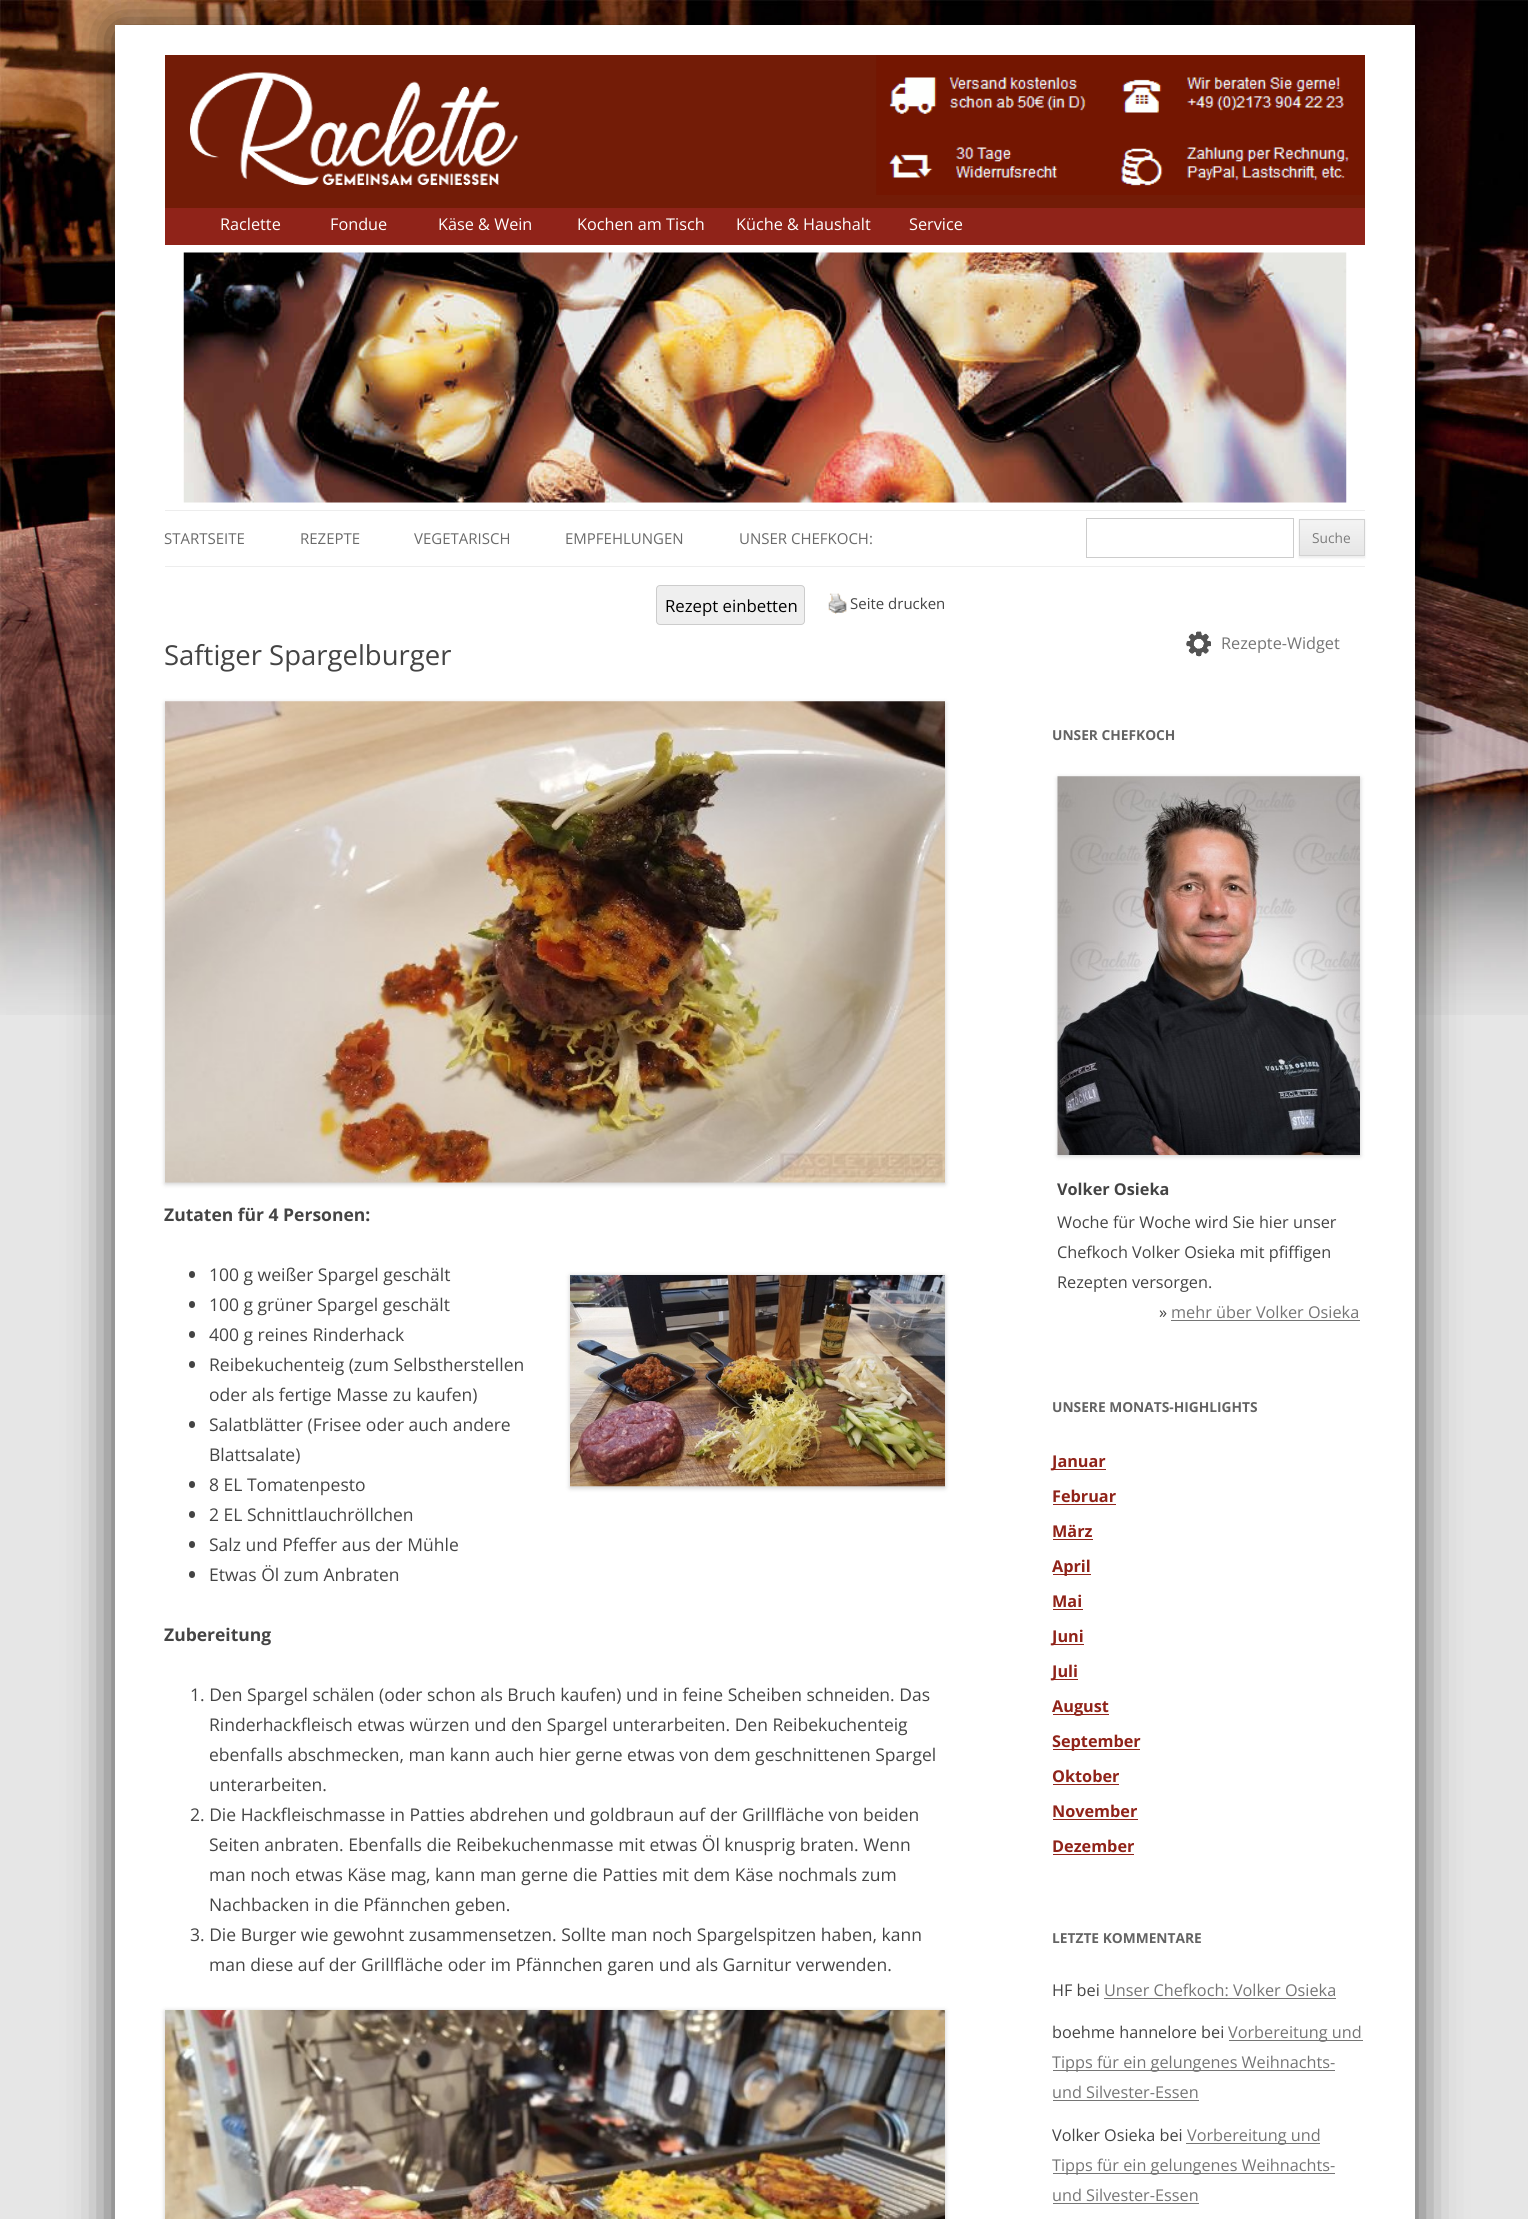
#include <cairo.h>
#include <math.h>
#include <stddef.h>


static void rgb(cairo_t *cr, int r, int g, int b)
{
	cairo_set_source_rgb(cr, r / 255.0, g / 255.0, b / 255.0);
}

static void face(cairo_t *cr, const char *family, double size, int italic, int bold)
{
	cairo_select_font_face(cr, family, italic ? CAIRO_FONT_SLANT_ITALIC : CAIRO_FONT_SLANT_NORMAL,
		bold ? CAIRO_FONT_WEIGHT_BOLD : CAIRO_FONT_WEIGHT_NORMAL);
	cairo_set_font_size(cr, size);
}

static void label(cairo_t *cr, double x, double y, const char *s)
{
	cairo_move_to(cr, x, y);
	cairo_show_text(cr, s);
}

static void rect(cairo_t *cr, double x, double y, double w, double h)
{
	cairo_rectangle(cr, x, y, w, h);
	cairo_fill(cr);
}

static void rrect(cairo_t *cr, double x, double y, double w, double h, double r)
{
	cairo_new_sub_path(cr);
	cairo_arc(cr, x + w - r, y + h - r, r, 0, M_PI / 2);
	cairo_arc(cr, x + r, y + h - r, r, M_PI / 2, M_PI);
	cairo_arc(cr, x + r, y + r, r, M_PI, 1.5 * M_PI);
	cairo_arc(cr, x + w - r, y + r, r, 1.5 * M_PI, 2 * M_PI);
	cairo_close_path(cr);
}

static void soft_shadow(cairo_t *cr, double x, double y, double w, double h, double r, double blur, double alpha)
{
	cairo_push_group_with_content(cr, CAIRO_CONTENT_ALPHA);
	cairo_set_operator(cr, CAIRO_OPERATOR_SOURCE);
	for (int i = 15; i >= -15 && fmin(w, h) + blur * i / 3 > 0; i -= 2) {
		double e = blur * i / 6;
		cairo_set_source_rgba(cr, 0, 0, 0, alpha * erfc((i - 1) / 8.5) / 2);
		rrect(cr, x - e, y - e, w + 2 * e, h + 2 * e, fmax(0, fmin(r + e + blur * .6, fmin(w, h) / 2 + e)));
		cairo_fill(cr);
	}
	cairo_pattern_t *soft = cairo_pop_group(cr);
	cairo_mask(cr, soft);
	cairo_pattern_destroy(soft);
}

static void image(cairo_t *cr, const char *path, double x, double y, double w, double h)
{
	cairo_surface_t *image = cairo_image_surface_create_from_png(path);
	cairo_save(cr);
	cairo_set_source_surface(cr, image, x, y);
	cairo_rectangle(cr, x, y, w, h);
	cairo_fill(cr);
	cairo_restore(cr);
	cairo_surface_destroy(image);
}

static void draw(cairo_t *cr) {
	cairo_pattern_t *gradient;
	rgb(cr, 230, 230, 230);
	cairo_paint(cr);
	image(cr, "image0.png", 0, 0, 1528, 1015);
	rgb(cr, 0, 0, 0);
	soft_shadow(cr, 115, 28, 1300, 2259, 0, 22.5, 0.7);
	rgb(cr, 255, 255, 255);
	rect(cr, 115, 25, 1300, 2194);
	rgb(cr, 115, 28, 7);
	rect(cr, 165, 55, 1200, 153);
	image(cr, "image1.png", 190, 72, 328, 113);
	image(cr, "image2.png", 876, 55, 489, 140);
	rgb(cr, 144, 35, 25);
	rect(cr, 165, 208, 1200, 37);
	face(cr, "Open Sans", 16.25, 0, 0);
	rgb(cr, 255, 255, 255);
	label(cr, 220, 230, "Raclette");
	label(cr, 330, 230, "Fondue");
	label(cr, 438, 230, "Käse & Wein");
	label(cr, 577, 230, "Kochen am Tisch");
	label(cr, 736, 230, "Küche & Haushalt");
	label(cr, 909, 230, "Service");
	image(cr, "image3.png", 183, 252, 1164, 251);
	rgb(cr, 237, 237, 237);
	rect(cr, 165, 510, 1200, 1);
	rect(cr, 165, 566, 1200, 1);
	face(cr, "Open Sans", 15, 0, 0);
	rgb(cr, 106, 106, 106);
	label(cr, 164, 544, "STARTSEITE");
	label(cr, 300, 544, "REZEPTE");
	label(cr, 414, 544, "VEGETARISCH");
	label(cr, 565, 544, "EMPFEHLUNGEN");
	label(cr, 739, 544, "UNSER CHEFKOCH:");
	cairo_rectangle(cr, 1086.5, 518.5, 207, 39);
	rgb(cr, 204, 204, 204);
	cairo_set_line_width(cr, 1);
	cairo_stroke(cr);
	rgb(cr, 64, 64, 64);
	soft_shadow(cr, 1299, 520, 66, 38, 0, 1, 0.1);
	gradient = cairo_pattern_create_linear(1332, 520, 1332, 555);
	cairo_pattern_add_color_stop_rgba(gradient, 0, 0.957, 0.957, 0.957, 1);
	cairo_pattern_add_color_stop_rgba(gradient, 1, 0.902, 0.902, 0.902, 1);
	cairo_set_source(cr, gradient);
	cairo_pattern_destroy(gradient);
	rect(cr, 1300, 521, 64, 34);
	cairo_rectangle(cr, 1299.5, 519.5, 65, 36);
	rgb(cr, 210, 210, 210);
	cairo_stroke(cr);
	face(cr, "Open Sans", 13.75, 0, 0);
	rgb(cr, 124, 124, 124);
	label(cr, 1312, 543, "Suche");
	rgb(cr, 239, 239, 239);
	rrect(cr, 656.5, 585.5, 148, 39, 3.5);
	cairo_fill_preserve(cr);
	rgb(cr, 204, 204, 204);
	cairo_stroke(cr);
	face(cr, "Open Sans", 16.75, 0, 0);
	rgb(cr, 0, 0, 0);
	label(cr, 665, 612, "Rezept einbetten");
	image(cr, "image4.png", 828, 593, 19, 21);
	face(cr, "Open Sans", 15, 0, 0);
	rgb(cr, 68, 68, 68);
	label(cr, 850, 609, "Seite drucken");
	face(cr, "Open Sans", 27.5, 0, 0);
	label(cr, 164, 665, "Saftiger Spargelburger");
	rgb(cr, 0, 0, 0);
	soft_shadow(cr, 165, 703, 780, 481, 0, 2.5, 0.2);
	image(cr, "image5.png", 165, 701, 780, 482);
	face(cr, "Open Sans", 17.5, 0, 1);
	rgb(cr, 68, 68, 68);
	label(cr, 164, 1221, "Zutaten für 4 Personen:");
	rrect(cr, 189, 1271, 6, 7, 3);
	cairo_fill(cr);
	face(cr, "Open Sans", 17.5, 0, 0);
	label(cr, 209, 1281, "100 g weißer Spargel geschält");
	rrect(cr, 189, 1301, 6, 7, 3);
	cairo_fill(cr);
	label(cr, 209, 1311, "100 g grüner Spargel geschält");
	rrect(cr, 189, 1331, 6, 7, 3);
	cairo_fill(cr);
	label(cr, 209, 1341, "400 g reines Rinderhack");
	rrect(cr, 189, 1361, 6, 7, 3);
	cairo_fill(cr);
	label(cr, 209, 1371, "Reibekuchenteig (zum Selbstherstellen");
	label(cr, 209, 1401, "oder als fertige Masse zu kaufen)");
	rrect(cr, 189, 1421, 6, 7, 3);
	cairo_fill(cr);
	label(cr, 209, 1431, "Salatblätter (Frisee oder auch andere");
	label(cr, 209, 1461, "Blattsalate)");
	rrect(cr, 189, 1481, 6, 7, 3);
	cairo_fill(cr);
	label(cr, 209, 1491, "8 EL Tomatenpesto");
	rrect(cr, 189, 1511, 6, 7, 3);
	cairo_fill(cr);
	label(cr, 209, 1521, "2 EL Schnittlauchröllchen");
	rrect(cr, 189, 1541, 6, 7, 3);
	cairo_fill(cr);
	label(cr, 209, 1551, "Salz und Pfeffer aus der Mühle");
	rrect(cr, 189, 1571, 6, 7, 3);
	cairo_fill(cr);
	label(cr, 209, 1581, "Etwas Öl zum Anbraten");
	rgb(cr, 0, 0, 0);
	soft_shadow(cr, 570, 1276, 375, 212, 0, 2.5, 0.2);
	image(cr, "image6.png", 570, 1275, 375, 212);
	face(cr, "Open Sans", 17.5, 0, 1);
	rgb(cr, 68, 68, 68);
	label(cr, 164, 1641, "Zubereitung");
	face(cr, "Open Sans", 17.5, 0, 0);
	label(cr, 190, 1701, "1. Den Spargel schälen (oder schon als Bruch kaufen) und in feine Scheiben schneiden. Das");
	label(cr, 209, 1731, "Rinderhackfleisch etwas würzen und den Spargel unterarbeiten. Den Reibekuchenteig");
	label(cr, 209, 1761, "ebenfalls abschmecken, man kann auch hier gerne etwas von dem geschnittenen Spargel");
	label(cr, 209, 1791, "unterarbeiten.");
	label(cr, 190, 1821, "2. Die Hackfleischmasse in Patties abdrehen und goldbraun auf der Grillfläche von beiden");
	label(cr, 209, 1851, "Seiten anbraten. Ebenfalls die Reibekuchenmasse mit etwas Öl knusprig braten. Wenn");
	label(cr, 209, 1881, "man noch etwas Käse mag, kann man gerne die Patties mit dem Käse nochmals zum");
	label(cr, 209, 1911, "Nachbacken in die Pfännchen geben.");
	label(cr, 190, 1941, "3. Die Burger wie gewohnt zusammensetzen. Sollte man noch Spargelspitzen haben, kann");
	label(cr, 209, 1971, "man diese auf der Grillfläche oder im Pfännchen garen und als Garnitur verwenden.");
	rgb(cr, 0, 0, 0);
	soft_shadow(cr, 165, 2011, 780, 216, 0, 2.5, 0.2);
	image(cr, "image7.png", 165, 2010, 780, 209);
	image(cr, "image8.png", 1186, 631, 25, 26);
	face(cr, "Open Sans", 16.25, 0, 0);
	rgb(cr, 117, 117, 117);
	label(cr, 1221, 649, "Rezepte-Widget");
	face(cr, "Open Sans", 13.75, 0, 1);
	rgb(cr, 99, 99, 99);
	label(cr, 1052, 740, "UNSER CHEFKOCH");
	rgb(cr, 0, 0, 0);
	soft_shadow(cr, 1058, 778, 302, 378, 0, 2.5, 0.2);
	image(cr, "image9.png", 1057, 776, 303, 379);
	face(cr, "Open Sans", 16.25, 0, 1);
	rgb(cr, 68, 68, 68);
	label(cr, 1057, 1195, "Volker Osieka");
	face(cr, "Open Sans", 16.25, 0, 0);
	label(cr, 1057, 1228, "Woche für Woche wird Sie hier unser");
	label(cr, 1057, 1258, "Chefkoch Volker Osieka mit pfiffigen");
	label(cr, 1057, 1288, "Rezepten versorgen.");
	label(cr, 1159, 1318, "»");
	rgb(cr, 117, 117, 117);
	label(cr, 1171, 1318, "mehr über Volker Osieka");
	rect(cr, 1171, 1320, 189, 1);
	face(cr, "Open Sans", 13.75, 0, 1);
	rgb(cr, 99, 99, 99);
	label(cr, 1052, 1412, "UNSERE MONATS-HIGHLIGHTS");
	rgb(cr, 144, 35, 25);
	rect(cr, 1053, 1469, 53, 1);
	face(cr, "Open Sans", 16.25, 0, 1);
	label(cr, 1052, 1467, "Januar");
	label(cr, 1052, 1502, "Februar");
	rect(cr, 1053, 1504, 63, 1);
	label(cr, 1052, 1537, "März");
	rect(cr, 1053, 1539, 40, 1);
	rect(cr, 1053, 1574, 38, 1);
	label(cr, 1052, 1572, "April");
	label(cr, 1052, 1607, "Mai");
	rect(cr, 1053, 1609, 30, 1);
	rect(cr, 1053, 1644, 31, 1);
	label(cr, 1052, 1642, "Juni");
	rect(cr, 1053, 1679, 25, 1);
	label(cr, 1052, 1677, "Juli");
	rect(cr, 1053, 1714, 56, 1);
	label(cr, 1052, 1712, "August");
	rect(cr, 1053, 1749, 87, 1);
	label(cr, 1052, 1747, "September");
	label(cr, 1052, 1782, "Oktober");
	rect(cr, 1053, 1784, 66, 1);
	label(cr, 1052, 1817, "November");
	rect(cr, 1053, 1819, 85, 1);
	label(cr, 1052, 1852, "Dezember");
	rect(cr, 1053, 1854, 81, 1);
	face(cr, "Open Sans", 13.75, 0, 1);
	rgb(cr, 99, 99, 99);
	label(cr, 1052, 1943, "LETZTE KOMMENTARE");
	face(cr, "Open Sans", 16.25, 0, 0);
	rgb(cr, 68, 68, 68);
	label(cr, 1052, 1996, "HF bei");
	rgb(cr, 117, 117, 117);
	label(cr, 1104, 1996, "Unser Chefkoch: Volker Osieka");
	rect(cr, 1104, 1998, 232, 1);
	rgb(cr, 68, 68, 68);
	label(cr, 1052, 2038, "boehme hannelore bei");
	rgb(cr, 117, 117, 117);
	rect(cr, 1229, 2040, 134, 1);
	label(cr, 1228, 2038, "Vorbereitung und");
	rect(cr, 1053, 2070, 282, 1);
	label(cr, 1052, 2068, "Tipps für ein gelungenes Weihnachts-");
	label(cr, 1052, 2098, "und Silvester-Essen");
	rect(cr, 1053, 2100, 146, 1);
	rgb(cr, 68, 68, 68);
	label(cr, 1052, 2141, "Volker Osieka bei");
	rgb(cr, 117, 117, 117);
	rect(cr, 1186, 2143, 134, 1);
	label(cr, 1187, 2141, "Vorbereitung und");
	rect(cr, 1053, 2173, 282, 1);
	label(cr, 1052, 2171, "Tipps für ein gelungenes Weihnachts-");
	label(cr, 1052, 2201, "und Silvester-Essen");
	rect(cr, 1053, 2203, 146, 1);
}

int main(void) {
	cairo_surface_t *surface = cairo_image_surface_create(CAIRO_FORMAT_RGB24, 1528, 2219);
	cairo_t *cr = cairo_create(surface);
	cairo_font_options_t *options = cairo_font_options_create();
	cairo_font_options_set_hint_metrics(options, CAIRO_HINT_METRICS_OFF);
	cairo_font_options_set_hint_style(options, CAIRO_HINT_STYLE_NONE);
	cairo_set_font_options(cr, options);
	cairo_set_miter_limit(cr, 4);
	draw(cr);
	cairo_surface_write_to_png(surface, "render.png");
	cairo_font_options_destroy(options);
	cairo_destroy(cr);
	cairo_surface_destroy(surface);
	return 0;
}
